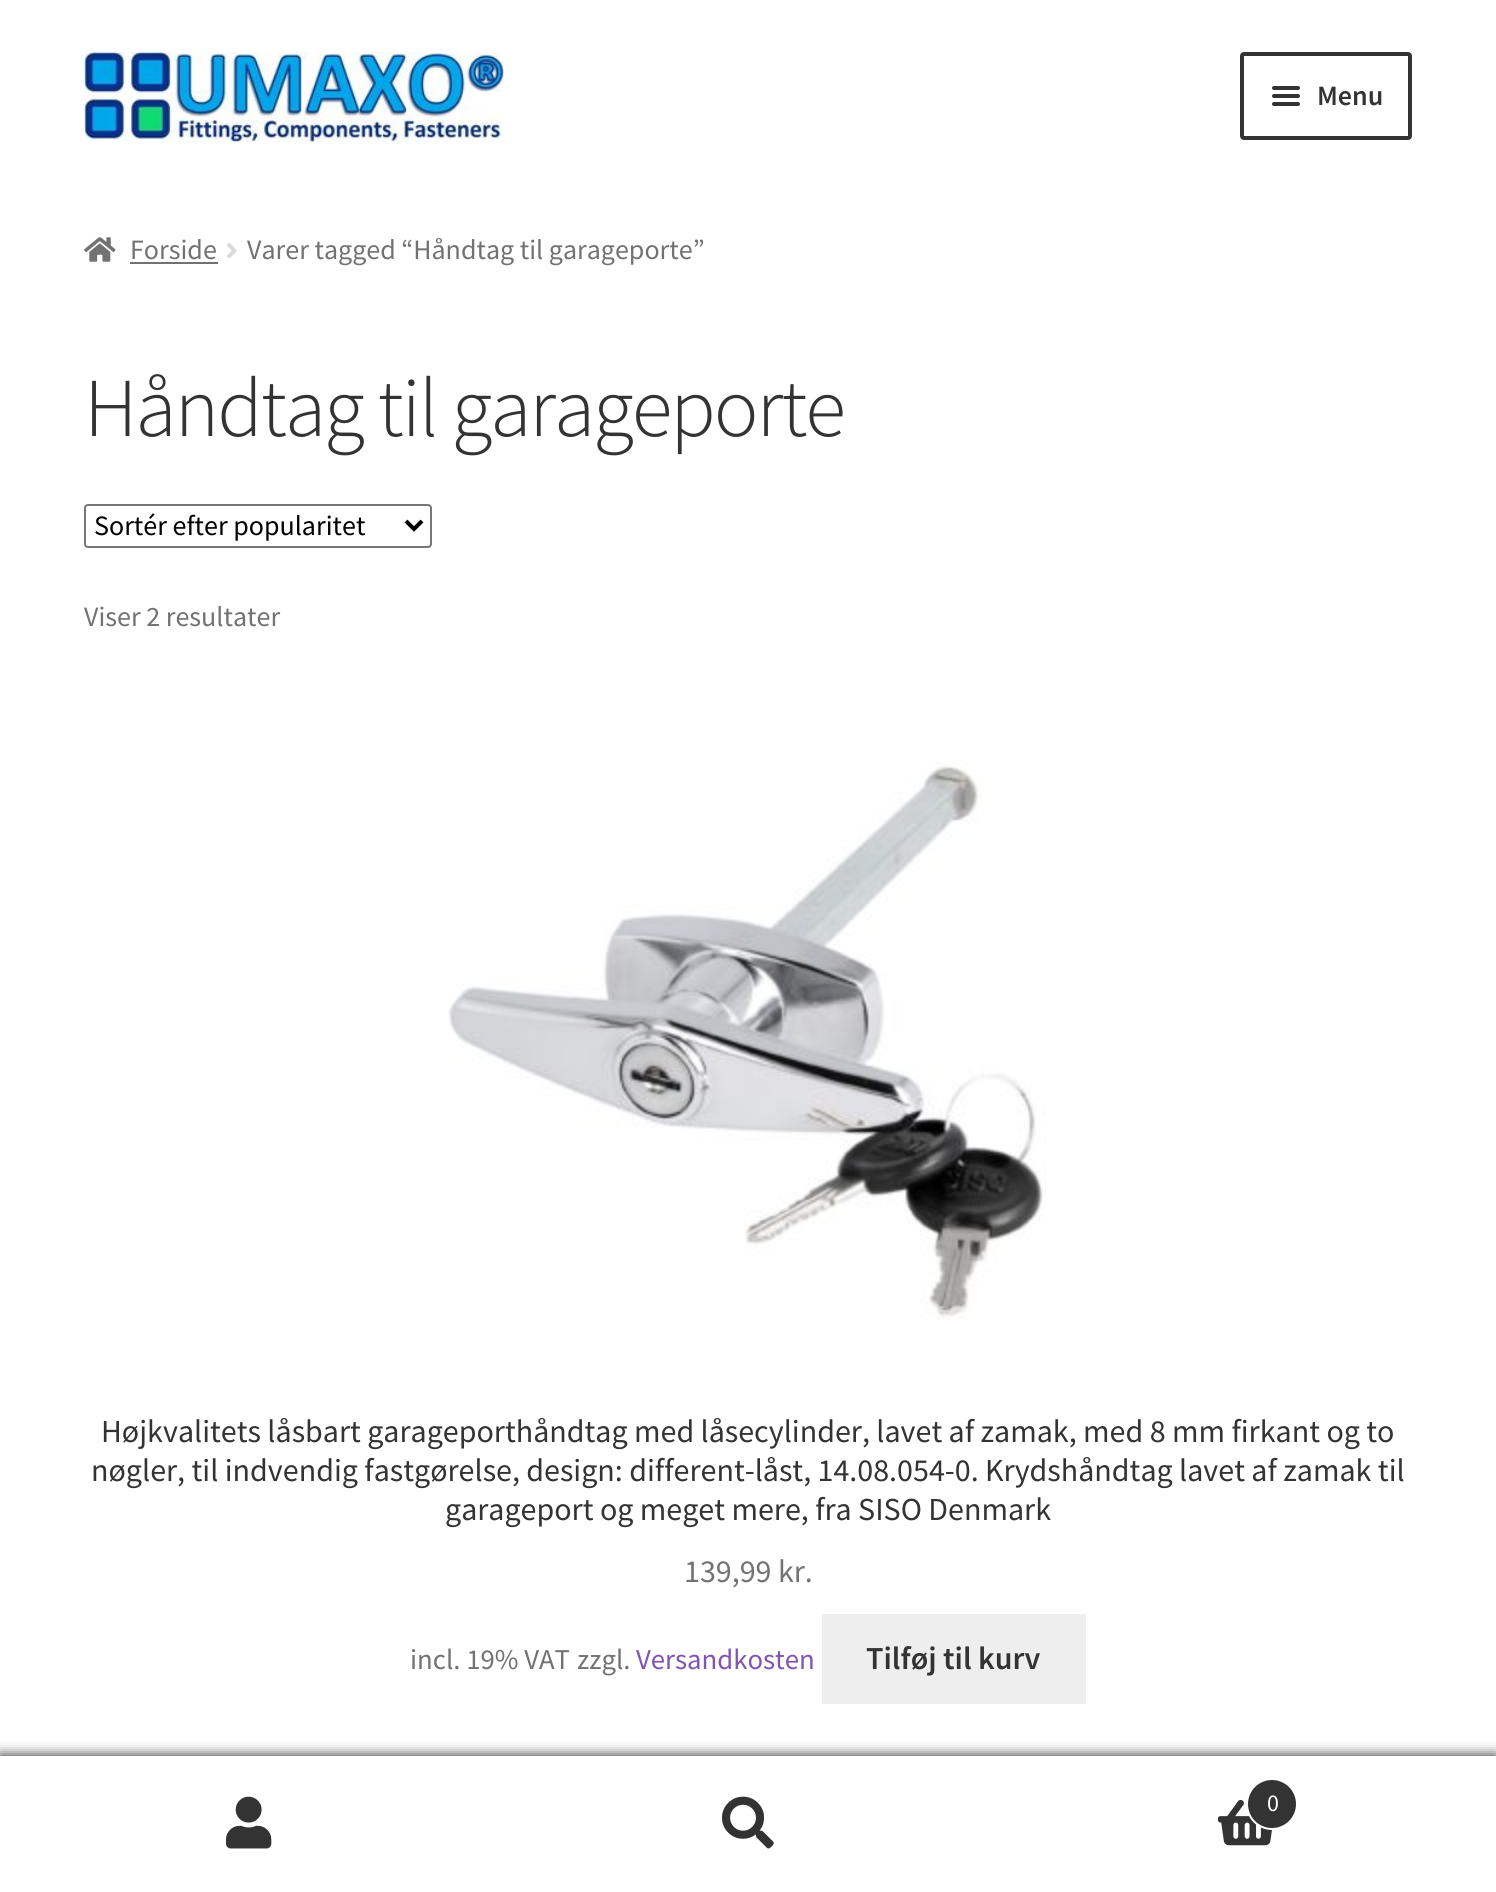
#include <cairo.h>
#include <math.h>
#include <stddef.h>


static void rgb(cairo_t *cr, int r, int g, int b)
{
	cairo_set_source_rgb(cr, r / 255.0, g / 255.0, b / 255.0);
}

static void face(cairo_t *cr, const char *family, double size, int italic, int bold)
{
	cairo_select_font_face(cr, family, italic ? CAIRO_FONT_SLANT_ITALIC : CAIRO_FONT_SLANT_NORMAL,
		bold ? CAIRO_FONT_WEIGHT_BOLD : CAIRO_FONT_WEIGHT_NORMAL);
	cairo_set_font_size(cr, size);
}

static void label(cairo_t *cr, double x, double y, const char *s)
{
	cairo_move_to(cr, x, y);
	cairo_show_text(cr, s);
}

static void tracked(cairo_t *cr, double x, double y, const char *s, double letter, double word)
{
	cairo_move_to(cr, x, y);
	while (*s) {
		char ch[5] = {0};
		int n = 0;
		do ch[n++] = *s++; while ((*s & 0xC0) == 0x80);
		cairo_show_text(cr, ch);
		cairo_rel_move_to(cr, letter + word * (*ch == ' '), 0);
	}
}

static void rect(cairo_t *cr, double x, double y, double w, double h)
{
	cairo_rectangle(cr, x, y, w, h);
	cairo_fill(cr);
}

static void rrect(cairo_t *cr, double x, double y, double w, double h, double r)
{
	cairo_new_sub_path(cr);
	cairo_arc(cr, x + w - r, y + h - r, r, 0, M_PI / 2);
	cairo_arc(cr, x + r, y + h - r, r, M_PI / 2, M_PI);
	cairo_arc(cr, x + r, y + r, r, M_PI, 1.5 * M_PI);
	cairo_arc(cr, x + w - r, y + r, r, 1.5 * M_PI, 2 * M_PI);
	cairo_close_path(cr);
}

static void soft_shadow(cairo_t *cr, double x, double y, double w, double h, double r, double blur, double alpha)
{
	cairo_push_group_with_content(cr, CAIRO_CONTENT_ALPHA);
	cairo_set_operator(cr, CAIRO_OPERATOR_SOURCE);
	for (int i = 15; i >= -15 && fmin(w, h) + blur * i / 3 > 0; i -= 2) {
		double e = blur * i / 6;
		cairo_set_source_rgba(cr, 0, 0, 0, alpha * erfc((i - 1) / 8.5) / 2);
		rrect(cr, x - e, y - e, w + 2 * e, h + 2 * e, fmax(0, fmin(r + e + blur * .6, fmin(w, h) / 2 + e)));
		cairo_fill(cr);
	}
	cairo_pattern_t *soft = cairo_pop_group(cr);
	cairo_mask(cr, soft);
	cairo_pattern_destroy(soft);
}

static void image(cairo_t *cr, const char *path, double x, double y, double w, double h)
{
	cairo_surface_t *image = cairo_image_surface_create_from_png(path);
	cairo_save(cr);
	cairo_set_source_surface(cr, image, x, y);
	cairo_rectangle(cr, x, y, w, h);
	cairo_fill(cr);
	cairo_restore(cr);
	cairo_surface_destroy(image);
}

static void draw(cairo_t *cr) {
	rgb(cr, 255, 255, 255);
	cairo_paint(cr);
	image(cr, "image0.png", 84, 52, 420, 90);
	rrect(cr, 1242, 54, 168, 84, 2);
	rgb(cr, 51, 51, 51);
	cairo_set_line_width(cr, 4);
	cairo_stroke(cr);
	rrect(cr, 1272, 86, 28, 4, 2);
	cairo_fill(cr);
	rrect(cr, 1272, 94, 28, 4, 2);
	cairo_fill(cr);
	face(cr, "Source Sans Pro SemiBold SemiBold", 28, 0, 0);
	label(cr, 1317, 105, "Menu");
	rrect(cr, 1272, 102, 28, 4, 2);
	cairo_fill(cr);
	image(cr, "image1.png", 84, 237, 32, 25);
	face(cr, "Source Sans Pro", 28, 0, 0);
	rgb(cr, 114, 114, 114);
	label(cr, 130, 259, "Forside");
	rect(cr, 130, 262, 88, 2);
	image(cr, "image2.png", 227, 243, 10, 16);
	label(cr, 247, 259, "Varer tagged “Håndtag til garageporte”");
	face(cr, "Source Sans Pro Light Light", 83.75, 0, 0);
	rgb(cr, 51, 51, 51);
	tracked(cr, 84, 436, "Håndtag til garageporte", -2, 0);
	rrect(cr, 85, 505, 346, 42, 3);
	rgb(cr, 118, 118, 118);
	cairo_set_line_width(cr, 2);
	cairo_stroke(cr);
	cairo_new_path(cr);
	cairo_move_to(cr, 406, 521);
	cairo_line_to(cr, 414, 529);
	cairo_line_to(cr, 422, 521);
	rgb(cr, 0, 0, 0);
	cairo_set_line_width(cr, 4);
	cairo_stroke(cr);
	face(cr, "Source Sans Pro", 28, 0, 0);
	label(cr, 94, 535, "Sortér efter popularitet");
	rgb(cr, 114, 114, 114);
	label(cr, 84, 626, "Viser 2 resultater");
	image(cr, "image3.png", 448, 761, 598, 559);
	face(cr, "Source Sans Pro", 32, 0, 0);
	rgb(cr, 51, 51, 51);
	label(cr, 101, 1442, "Højkvalitets låsbart garageporthåndtag med låsecylinder, lavet af zamak, med 8 mm firkant og to");
	label(cr, 91, 1481, "nøgler, til indvendig fastgørelse, design: different-låst, 14.08.054-0. Krydshåndtag lavet af zamak til");
	label(cr, 445, 1520, "garageport og meget mere, fra SISO Denmark");
	rgb(cr, 114, 114, 114);
	label(cr, 684, 1582, "139,99 kr.");
	face(cr, "Source Sans Pro", 28.75, 0, 0);
	label(cr, 410, 1669, "incl. 19% VAT");
	label(cr, 577, 1669, "zzgl.");
	rgb(cr, 127, 84, 179);
	label(cr, 636, 1669, "Versandkosten");
	rgb(cr, 238, 238, 238);
	rect(cr, 822, 1614, 264, 90);
	face(cr, "Source Sans Pro SemiBold SemiBold", 32, 0, 0);
	rgb(cr, 51, 51, 51);
	label(cr, 866, 1669, "Tilføj til kurv");
	rgb(cr, 0, 0, 0);
	soft_shadow(cr, 0, 1754, 1496, 138, 0, 6, 0.7);
	rgb(cr, 255, 255, 255);
	rect(cr, 0, 1756, 1496, 136);
	image(cr, "image4.png", 226, 1796, 46, 53);
	image(cr, "image5.png", 722, 1796, 52, 53);
	image(cr, "image6.png", 1218, 1799, 55, 47);
	rgb(cr, 51, 51, 51);
	cairo_arc(cr, 1272, 1804, 25, 0, 2 * M_PI);
	cairo_fill_preserve(cr);
	rgb(cr, 255, 255, 255);
	cairo_set_line_width(cr, 2);
	cairo_stroke(cr);
	face(cr, "Source Sans Pro", 24, 0, 0);
	label(cr, 1267, 1811, "0");
}

int main(void) {
	cairo_surface_t *surface = cairo_image_surface_create(CAIRO_FORMAT_RGB24, 1496, 1892);
	cairo_t *cr = cairo_create(surface);
	cairo_font_options_t *options = cairo_font_options_create();
	cairo_font_options_set_hint_metrics(options, CAIRO_HINT_METRICS_OFF);
	cairo_font_options_set_hint_style(options, CAIRO_HINT_STYLE_NONE);
	cairo_set_font_options(cr, options);
	cairo_set_miter_limit(cr, 4);
	draw(cr);
	cairo_surface_write_to_png(surface, "render.png");
	cairo_font_options_destroy(options);
	cairo_destroy(cr);
	cairo_surface_destroy(surface);
	return 0;
}
